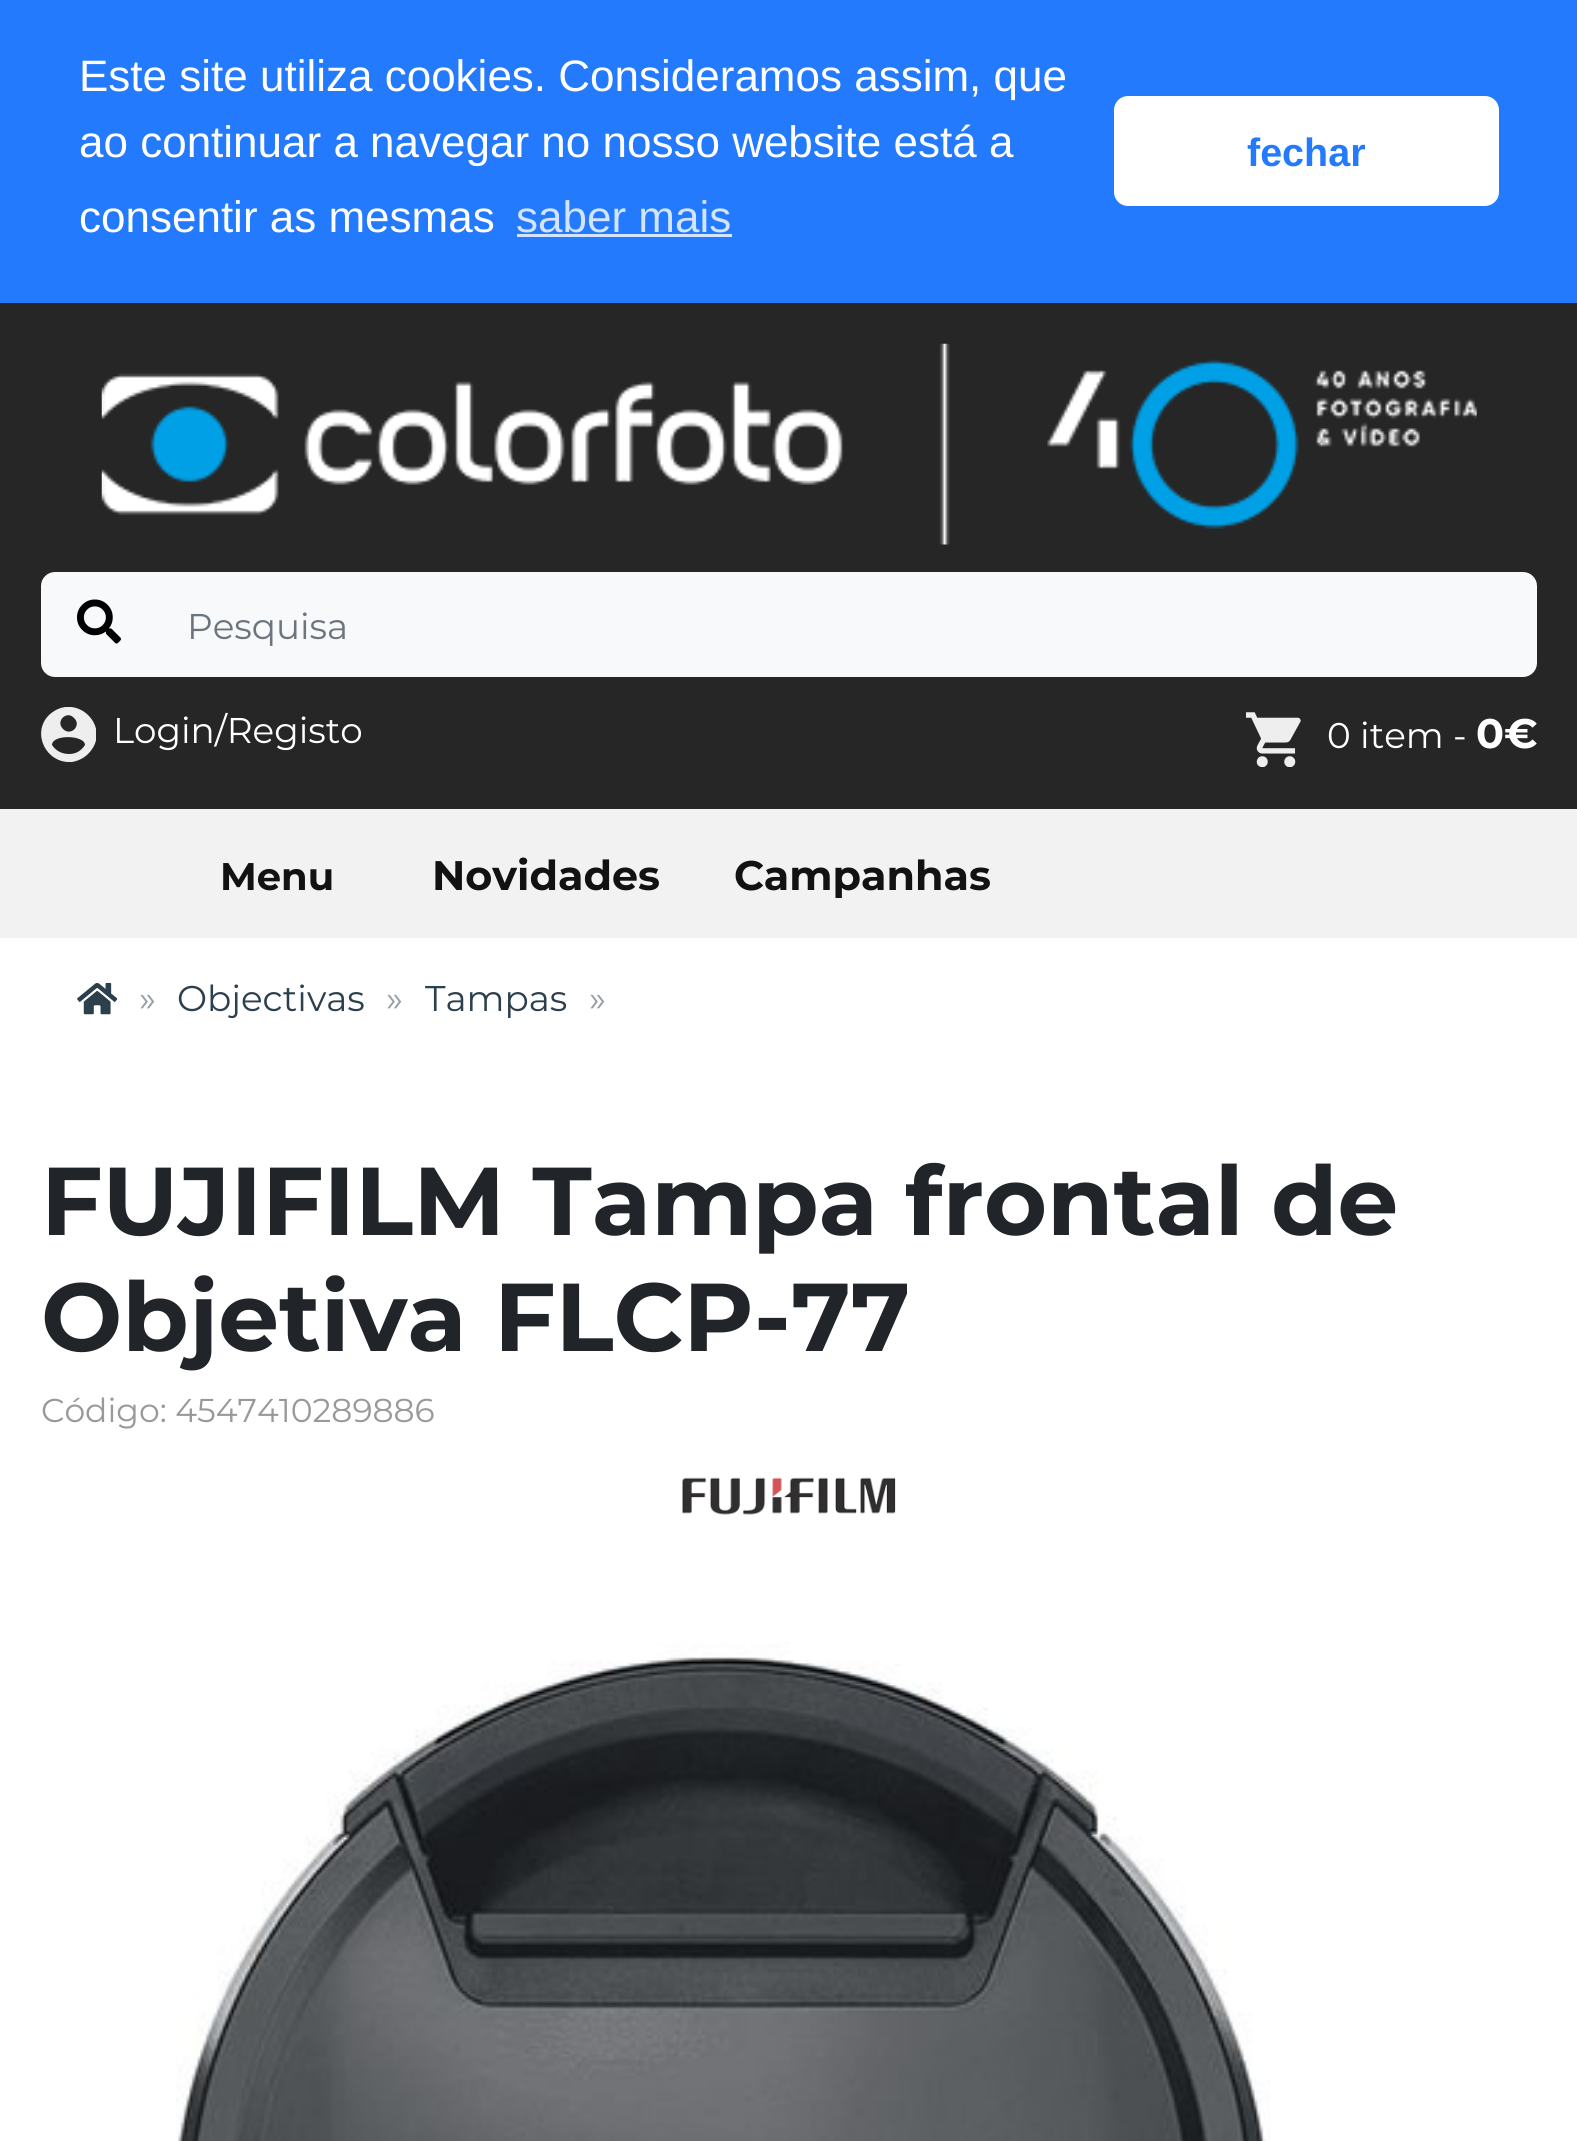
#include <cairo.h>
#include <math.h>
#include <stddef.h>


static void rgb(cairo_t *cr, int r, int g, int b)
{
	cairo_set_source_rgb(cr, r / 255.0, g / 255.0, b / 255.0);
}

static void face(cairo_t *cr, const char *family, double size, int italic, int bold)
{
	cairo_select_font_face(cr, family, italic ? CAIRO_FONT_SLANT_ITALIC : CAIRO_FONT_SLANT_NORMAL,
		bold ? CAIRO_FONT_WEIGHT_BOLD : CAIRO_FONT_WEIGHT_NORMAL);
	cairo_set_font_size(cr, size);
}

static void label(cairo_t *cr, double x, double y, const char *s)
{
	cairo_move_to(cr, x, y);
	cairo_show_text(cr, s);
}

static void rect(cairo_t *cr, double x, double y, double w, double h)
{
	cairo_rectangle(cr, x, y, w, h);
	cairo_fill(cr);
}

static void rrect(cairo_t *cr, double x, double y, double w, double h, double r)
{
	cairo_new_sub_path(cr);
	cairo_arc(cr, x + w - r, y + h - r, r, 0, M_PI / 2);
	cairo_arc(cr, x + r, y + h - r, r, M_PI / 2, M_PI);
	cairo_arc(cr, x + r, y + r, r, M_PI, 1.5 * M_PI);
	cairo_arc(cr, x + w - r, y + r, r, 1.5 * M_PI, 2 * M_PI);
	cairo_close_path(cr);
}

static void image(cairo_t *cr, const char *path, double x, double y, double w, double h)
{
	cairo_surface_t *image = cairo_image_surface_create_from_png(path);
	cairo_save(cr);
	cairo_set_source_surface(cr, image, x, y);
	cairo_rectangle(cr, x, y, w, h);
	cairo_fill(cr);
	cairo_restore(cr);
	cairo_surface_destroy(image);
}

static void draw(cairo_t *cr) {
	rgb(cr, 255, 255, 255);
	cairo_paint(cr);
	rgb(cr, 35, 122, 252);
	rect(cr, 0, 0, 1577, 303);
	face(cr, "Liberation Sans", 44, 0, 0);
	rgb(cr, 255, 255, 255);
	label(cr, 79, 91, "Este site utiliza cookies. Consideramos assim, que");
	label(cr, 79, 157, "ao continuar a navegar no nosso website está a");
	label(cr, 79, 232, "consentir as mesmas");
	rgb(cr, 211, 228, 254);
	label(cr, 516, 232, "saber mais");
	rect(cr, 517, 234, 215, 3);
	rgb(cr, 255, 255, 255);
	rrect(cr, 1114, 96, 385, 110, 14);
	cairo_fill(cr);
	face(cr, "Liberation Sans", 39.5, 0, 1);
	rgb(cr, 35, 122, 252);
	label(cr, 1247, 166, "fechar");
	rgb(cr, 38, 38, 38);
	rect(cr, 0, 303, 1577, 506);
	image(cr, "image0.png", 101, 343, 1376, 202);
	rgb(cr, 248, 249, 250);
	rrect(cr, 41, 572, 1496, 105, 14);
	cairo_fill(cr);
	image(cr, "image1.png", 77, 599, 44, 45);
	face(cr, "Montserrat", 35.75, 0, 0);
	rgb(cr, 108, 117, 125);
	label(cr, 187, 639, "Pesquisa");
	rgb(cr, 255, 255, 255);
	label(cr, 113, 743, "Login/Registo");
	cairo_save(cr);
	cairo_rectangle(cr, 41, 707, 55, 55);
	cairo_clip(cr);
	rgb(cr, 238, 238, 238);
	cairo_new_path(cr);
	cairo_move_to(cr, 49, 715);
	cairo_curve_to(cr, 76, 690, 114, 728, 88, 754);
	cairo_curve_to(cr, 84, 758, 78, 761, 72, 762);
	cairo_curve_to(cr, 46, 764, 31, 733, 49, 715);
	cairo_close_path(cr);
	cairo_move_to(cr, 69, 754);
	cairo_curve_to(cr, 76, 754, 81, 751, 85, 745);
	cairo_curve_to(cr, 85, 735, 52, 734, 52, 745);
	cairo_curve_to(cr, 56, 751, 62, 754, 69, 754);
	cairo_close_path(cr);
	cairo_move_to(cr, 74, 718);
	cairo_curve_to(cr, 67, 710, 55, 721, 63, 729);
	cairo_curve_to(cr, 71, 737, 82, 725, 74, 718);
	cairo_close_path(cr);
	cairo_fill(cr);
	cairo_restore(cr);
	image(cr, "image2.png", 1246, 712, 55, 55);
	label(cr, 1327, 748, "0 item -");
	face(cr, "Montserrat", 41.25, 0, 1);
	label(cr, 1476, 748, "0€");
	rgb(cr, 242, 242, 242);
	rect(cr, 0, 809, 1577, 129);
	face(cr, "Montserrat", 38.5, 0, 1);
	rgb(cr, 18, 18, 18);
	label(cr, 220, 890, "Menu");
	face(cr, "Montserrat", 41.25, 0, 1);
	label(cr, 432, 890, "Novidades");
	label(cr, 734, 890, "Campanhas");
	image(cr, "image3.png", 77, 982, 41, 33);
	face(cr, "Montserrat", 35.75, 0, 0);
	rgb(cr, 149, 159, 165);
	label(cr, 139, 1011, "»");
	rgb(cr, 44, 63, 76);
	label(cr, 177, 1011, "Objectivas");
	rgb(cr, 149, 159, 165);
	label(cr, 386, 1011, "»");
	rgb(cr, 44, 63, 76);
	label(cr, 425, 1011, "Tampas");
	rgb(cr, 149, 159, 165);
	label(cr, 589, 1011, "»");
	face(cr, "Montserrat", 96.25, 0, 1);
	rgb(cr, 33, 37, 41);
	label(cr, 41, 1235, "FUJIFILM Tampa frontal de");
	label(cr, 41, 1351, "Objetiva FLCP-77");
	face(cr, "Montserrat", 33, 0, 0);
	rgb(cr, 153, 153, 153);
	label(cr, 41, 1422, "Código: 4547410289886");
	image(cr, "image4.png", 682, 1477, 214, 38);
	image(cr, "image5.png", 176, 1642, 1094, 499);
}

int main(void) {
	cairo_surface_t *surface = cairo_image_surface_create(CAIRO_FORMAT_RGB24, 1577, 2141);
	cairo_t *cr = cairo_create(surface);
	cairo_font_options_t *options = cairo_font_options_create();
	cairo_font_options_set_hint_metrics(options, CAIRO_HINT_METRICS_OFF);
	cairo_font_options_set_hint_style(options, CAIRO_HINT_STYLE_NONE);
	cairo_set_font_options(cr, options);
	cairo_set_miter_limit(cr, 4);
	draw(cr);
	cairo_surface_write_to_png(surface, "render.png");
	cairo_font_options_destroy(options);
	cairo_destroy(cr);
	cairo_surface_destroy(surface);
	return 0;
}
